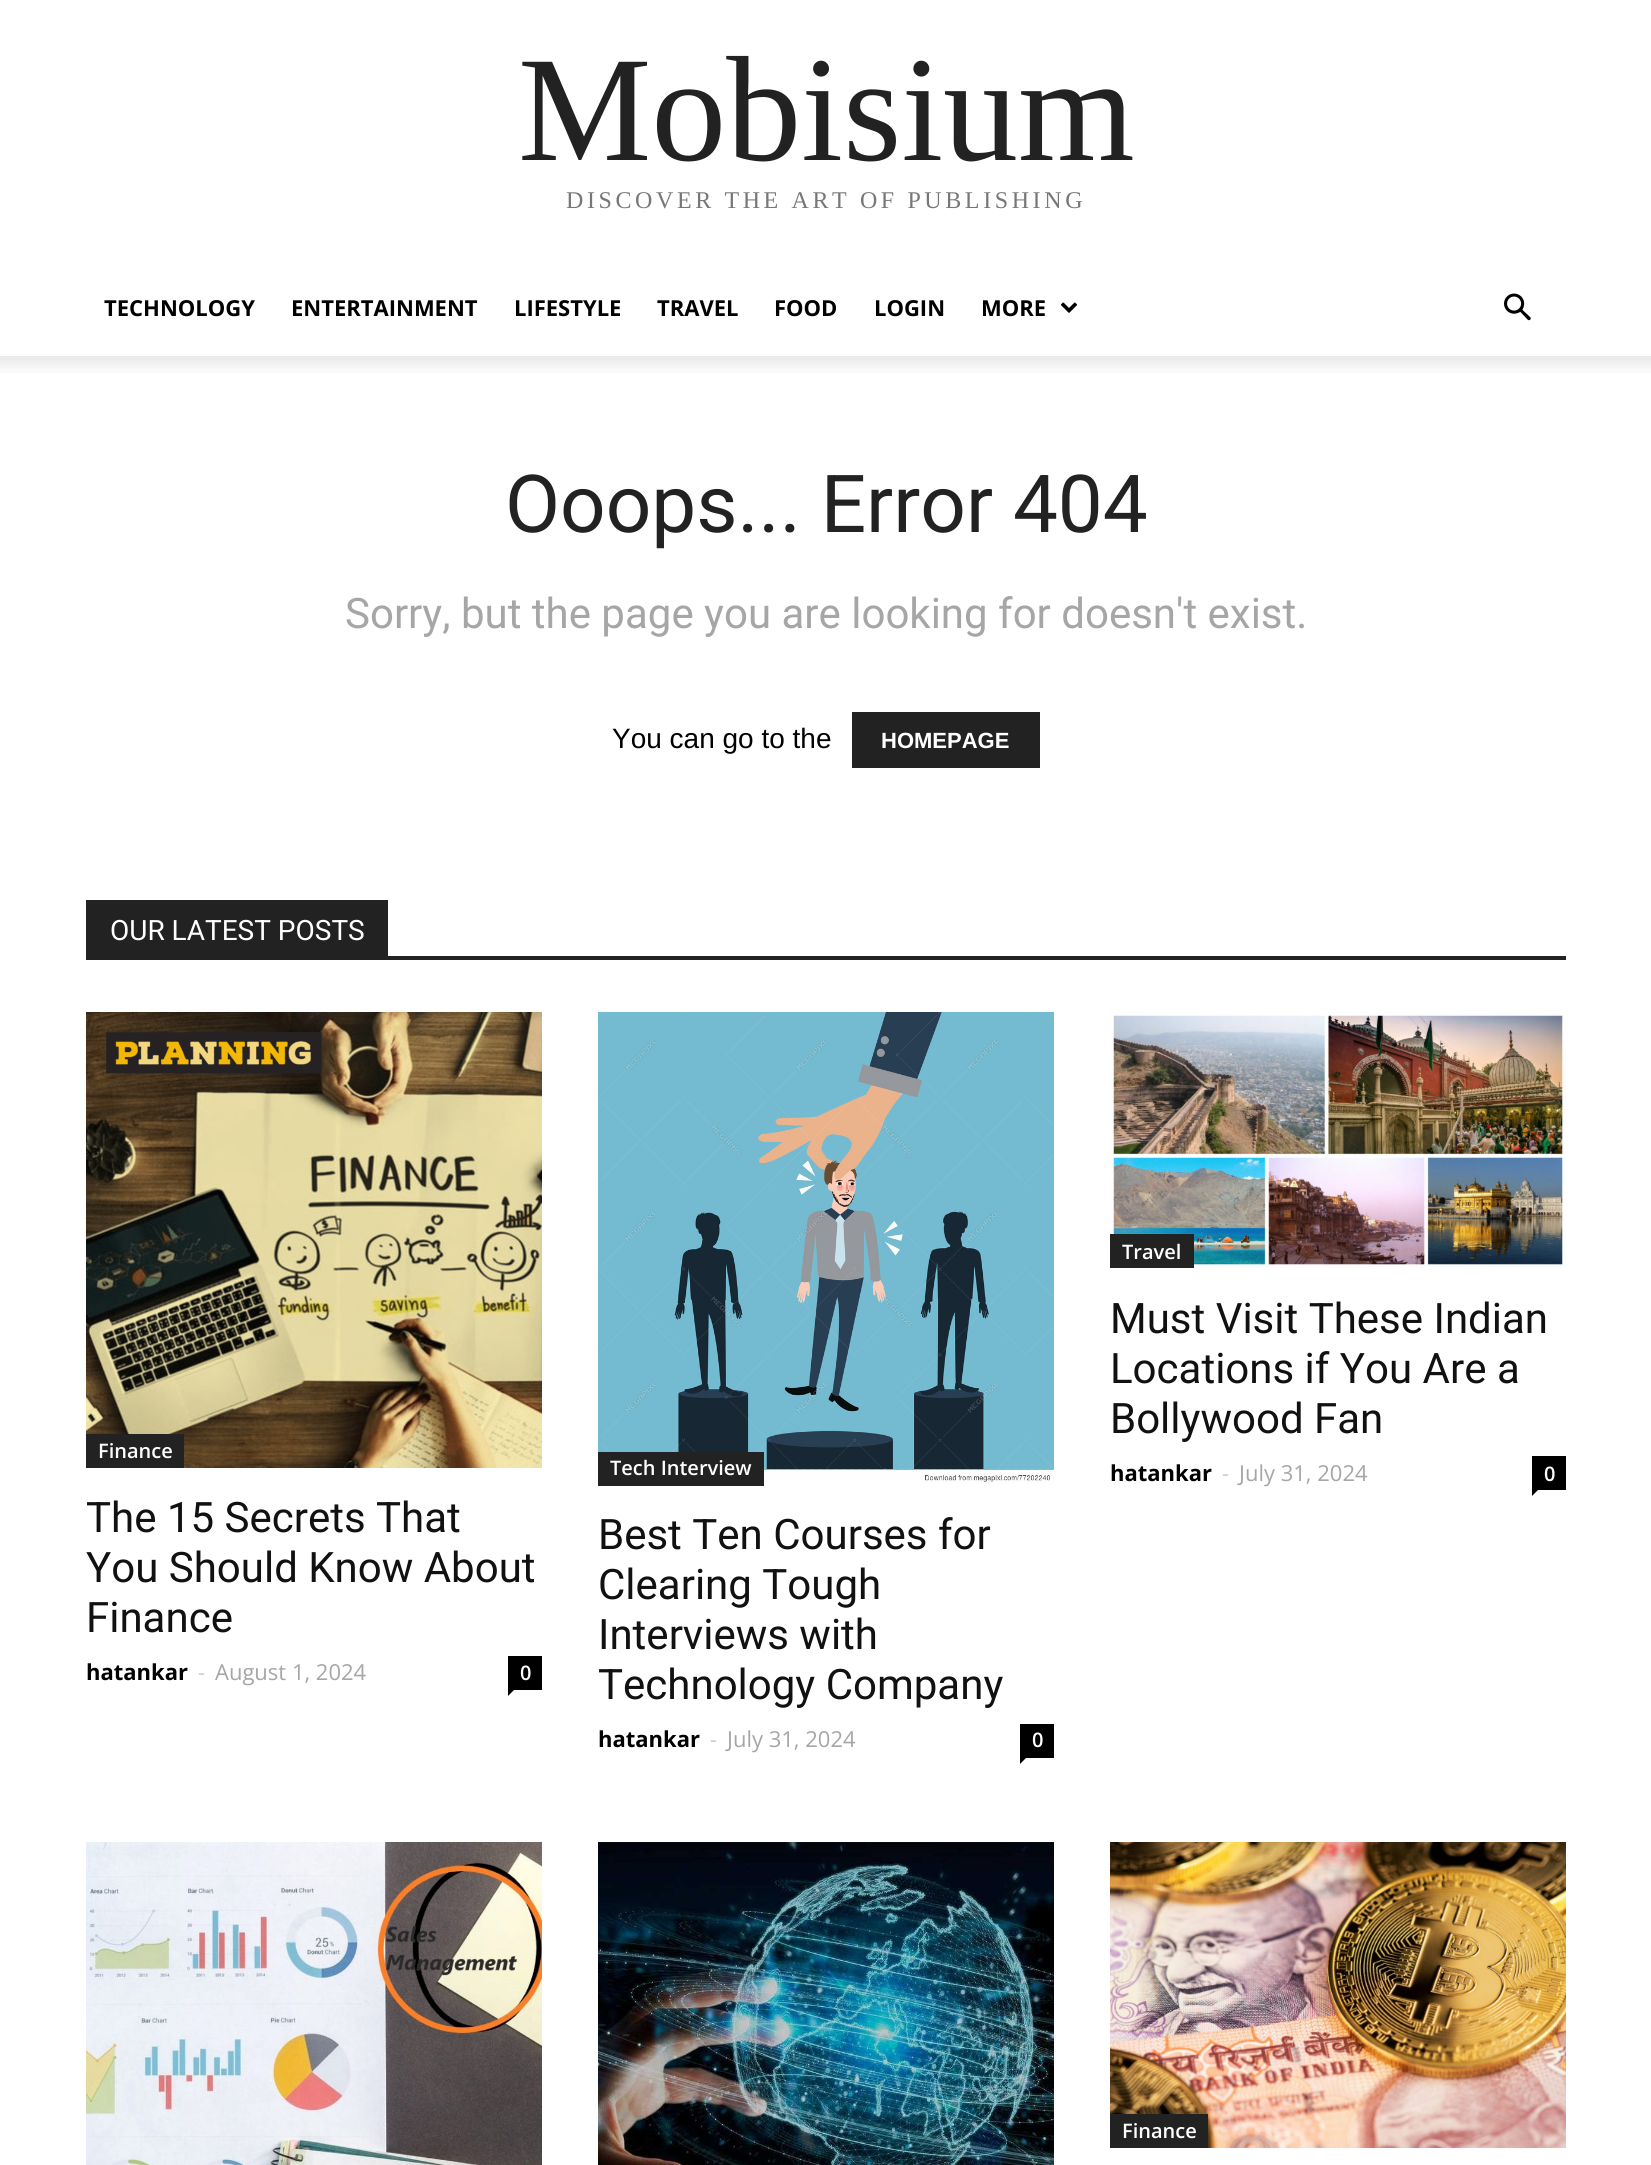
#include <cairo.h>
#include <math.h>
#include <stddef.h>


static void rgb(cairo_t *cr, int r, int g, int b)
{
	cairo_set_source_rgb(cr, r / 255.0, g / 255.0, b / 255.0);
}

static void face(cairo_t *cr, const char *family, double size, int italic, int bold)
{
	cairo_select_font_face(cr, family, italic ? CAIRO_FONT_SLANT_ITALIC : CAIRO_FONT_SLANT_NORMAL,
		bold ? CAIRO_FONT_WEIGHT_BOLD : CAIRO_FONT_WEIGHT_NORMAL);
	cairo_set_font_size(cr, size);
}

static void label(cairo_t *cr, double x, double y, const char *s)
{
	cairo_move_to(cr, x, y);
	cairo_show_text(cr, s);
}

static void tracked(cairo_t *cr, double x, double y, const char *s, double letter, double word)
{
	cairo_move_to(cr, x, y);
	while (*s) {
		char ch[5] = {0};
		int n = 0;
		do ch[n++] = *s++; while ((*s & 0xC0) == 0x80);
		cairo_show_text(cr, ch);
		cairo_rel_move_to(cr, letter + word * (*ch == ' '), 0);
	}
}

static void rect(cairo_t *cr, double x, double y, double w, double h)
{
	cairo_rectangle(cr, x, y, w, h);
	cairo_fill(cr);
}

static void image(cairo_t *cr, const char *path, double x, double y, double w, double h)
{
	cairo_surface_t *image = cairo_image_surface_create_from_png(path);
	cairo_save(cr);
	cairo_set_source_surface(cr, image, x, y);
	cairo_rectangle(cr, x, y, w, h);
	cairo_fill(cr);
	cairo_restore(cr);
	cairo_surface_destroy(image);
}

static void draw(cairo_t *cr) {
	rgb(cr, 255, 255, 255);
	cairo_paint(cr);
	face(cr, "Liberation Serif", 150, 0, 0);
	rgb(cr, 34, 34, 34);
	label(cr, 518, 160, "Mobisium");
	face(cr, "Liberation Serif", 24, 0, 0);
	rgb(cr, 119, 119, 119);
	tracked(cr, 566, 208, "DISCOVER THE ART OF PUBLISHING", 3.6, 0);
	face(cr, "Open Sans", 22, 0, 1);
	rgb(cr, 0, 0, 0);
	label(cr, 104, 316, "TECHNOLOGY");
	label(cr, 291, 316, "ENTERTAINMENT");
	label(cr, 514, 316, "LIFESTYLE");
	label(cr, 657, 316, "TRAVEL");
	label(cr, 774, 316, "FOOD");
	label(cr, 874, 316, "LOGIN");
	label(cr, 981, 316, "MORE");
	image(cr, "image0.png", 1060, 302, 18, 11);
	image(cr, "image1.png", 1504, 293, 27, 28);
	image(cr, "image2.png", 0, 356, 1651, 17);
	face(cr, "Roboto", 80, 0, 0);
	rgb(cr, 34, 34, 34);
	label(cr, 505, 532, "Ooops... Error 404");
	face(cr, "Roboto", 42, 0, 0);
	rgb(cr, 166, 166, 166);
	label(cr, 345, 628, "Sorry, but the page you are looking for doesn't exist.");
	face(cr, "Liberation Sans", 28, 0, 0);
	rgb(cr, 0, 0, 0);
	label(cr, 612, 748, "You can go to the");
	rgb(cr, 34, 34, 34);
	rect(cr, 852, 712, 188, 56);
	face(cr, "Liberation Sans", 22, 0, 1);
	rgb(cr, 255, 255, 255);
	label(cr, 881, 748, "HOMEPAGE");
	rgb(cr, 34, 34, 34);
	rect(cr, 86, 956, 1480, 4);
	rect(cr, 86, 900, 302, 56);
	face(cr, "Roboto", 28, 0, 0);
	rgb(cr, 255, 255, 255);
	label(cr, 110, 940, "OUR LATEST POSTS");
	image(cr, "image3.png", 1110, 1012, 456, 256);
	rgb(cr, 34, 34, 34);
	rect(cr, 1110, 1234, 84, 34);
	face(cr, "Open Sans SemiBold", 20, 0, 0);
	rgb(cr, 255, 255, 255);
	label(cr, 1122, 1259, "Travel");
	face(cr, "Roboto", 42, 0, 0);
	rgb(cr, 17, 17, 17);
	label(cr, 1110, 1333, "Must Visit These Indian");
	label(cr, 1110, 1383, "Locations if You Are a");
	label(cr, 1110, 1433, "Bollywood Fan");
	face(cr, "Open Sans", 22, 0, 1);
	rgb(cr, 0, 0, 0);
	label(cr, 1110, 1481, "hatankar");
	face(cr, "Open Sans", 22, 0, 0);
	rgb(cr, 204, 204, 204);
	label(cr, 1222, 1481, "-");
	rgb(cr, 166, 166, 166);
	label(cr, 1239, 1481, "July 31, 2024");
	rgb(cr, 0, 0, 0);
	rect(cr, 1532, 1456, 34, 34);
	face(cr, "Open Sans SemiBold", 20, 0, 0);
	rgb(cr, 255, 255, 255);
	label(cr, 1544, 1481, "0");
	rgb(cr, 0, 0, 0);
	cairo_new_path(cr);
	cairo_move_to(cr, 1532, 1490);
	cairo_line_to(cr, 1538, 1490);
	cairo_line_to(cr, 1532, 1496);
	cairo_close_path(cr);
	cairo_fill(cr);
	image(cr, "image4.png", 86, 1012, 456, 456);
	rgb(cr, 34, 34, 34);
	rect(cr, 86, 1434, 98, 34);
	rgb(cr, 255, 255, 255);
	label(cr, 98, 1458, "Finance");
	face(cr, "Roboto", 42, 0, 0);
	rgb(cr, 17, 17, 17);
	label(cr, 86, 1532, "The 15 Secrets That");
	label(cr, 86, 1582, "You Should Know About");
	label(cr, 86, 1632, "Finance");
	face(cr, "Open Sans", 22, 0, 1);
	rgb(cr, 0, 0, 0);
	label(cr, 86, 1680, "hatankar");
	face(cr, "Open Sans", 22, 0, 0);
	rgb(cr, 204, 204, 204);
	label(cr, 198, 1680, "-");
	rgb(cr, 166, 166, 166);
	label(cr, 215, 1680, "August 1, 2024");
	rgb(cr, 0, 0, 0);
	rect(cr, 508, 1656, 34, 34);
	face(cr, "Open Sans SemiBold", 20, 0, 0);
	rgb(cr, 255, 255, 255);
	label(cr, 520, 1680, "0");
	rgb(cr, 0, 0, 0);
	cairo_new_path(cr);
	cairo_move_to(cr, 508, 1690);
	cairo_line_to(cr, 514, 1690);
	cairo_line_to(cr, 508, 1696);
	cairo_close_path(cr);
	cairo_fill(cr);
	image(cr, "image5.png", 598, 1012, 456, 474);
	rgb(cr, 34, 34, 34);
	rect(cr, 598, 1452, 166, 34);
	rgb(cr, 255, 255, 255);
	label(cr, 610, 1475, "Tech Interview");
	face(cr, "Roboto", 42, 0, 0);
	rgb(cr, 17, 17, 17);
	label(cr, 598, 1549, "Best Ten Courses for");
	label(cr, 598, 1599, "Clearing Tough");
	label(cr, 598, 1649, "Interviews with");
	label(cr, 598, 1699, "Technology Company");
	face(cr, "Open Sans", 22, 0, 1);
	rgb(cr, 0, 0, 0);
	label(cr, 598, 1747, "hatankar");
	face(cr, "Open Sans", 22, 0, 0);
	rgb(cr, 204, 204, 204);
	label(cr, 710, 1747, "-");
	rgb(cr, 166, 166, 166);
	label(cr, 727, 1747, "July 31, 2024");
	rgb(cr, 0, 0, 0);
	rect(cr, 1020, 1724, 34, 34);
	face(cr, "Open Sans SemiBold", 20, 0, 0);
	rgb(cr, 255, 255, 255);
	label(cr, 1032, 1747, "0");
	rgb(cr, 0, 0, 0);
	cairo_new_path(cr);
	cairo_move_to(cr, 1020, 1758);
	cairo_line_to(cr, 1026, 1758);
	cairo_line_to(cr, 1020, 1764);
	cairo_close_path(cr);
	cairo_fill(cr);
	image(cr, "image6.png", 86, 1842, 456, 323);
	image(cr, "image7.png", 598, 1842, 456, 323);
	image(cr, "image8.png", 1110, 1842, 456, 306);
	rgb(cr, 34, 34, 34);
	rect(cr, 1110, 2114, 98, 34);
	rgb(cr, 255, 255, 255);
	label(cr, 1122, 2138, "Finance");
}

int main(void) {
	cairo_surface_t *surface = cairo_image_surface_create(CAIRO_FORMAT_RGB24, 1651, 2165);
	cairo_t *cr = cairo_create(surface);
	cairo_font_options_t *options = cairo_font_options_create();
	cairo_font_options_set_hint_metrics(options, CAIRO_HINT_METRICS_OFF);
	cairo_font_options_set_hint_style(options, CAIRO_HINT_STYLE_NONE);
	cairo_set_font_options(cr, options);
	cairo_set_miter_limit(cr, 4);
	draw(cr);
	cairo_surface_write_to_png(surface, "render.png");
	cairo_font_options_destroy(options);
	cairo_destroy(cr);
	cairo_surface_destroy(surface);
	return 0;
}
